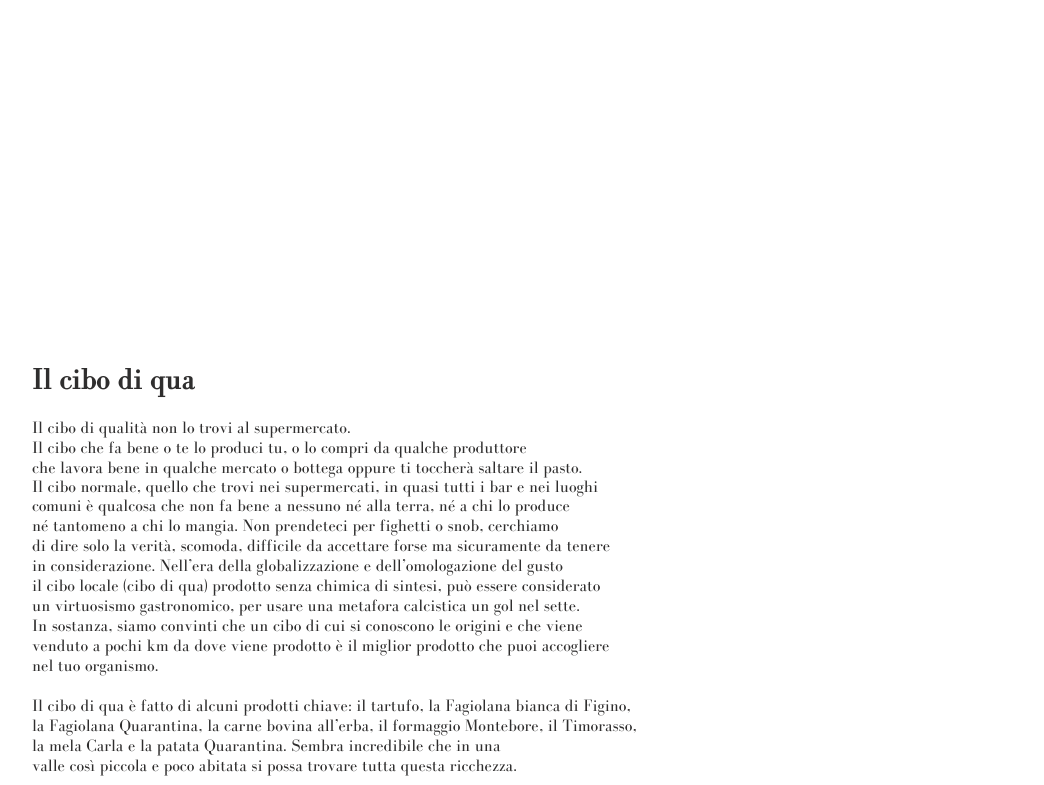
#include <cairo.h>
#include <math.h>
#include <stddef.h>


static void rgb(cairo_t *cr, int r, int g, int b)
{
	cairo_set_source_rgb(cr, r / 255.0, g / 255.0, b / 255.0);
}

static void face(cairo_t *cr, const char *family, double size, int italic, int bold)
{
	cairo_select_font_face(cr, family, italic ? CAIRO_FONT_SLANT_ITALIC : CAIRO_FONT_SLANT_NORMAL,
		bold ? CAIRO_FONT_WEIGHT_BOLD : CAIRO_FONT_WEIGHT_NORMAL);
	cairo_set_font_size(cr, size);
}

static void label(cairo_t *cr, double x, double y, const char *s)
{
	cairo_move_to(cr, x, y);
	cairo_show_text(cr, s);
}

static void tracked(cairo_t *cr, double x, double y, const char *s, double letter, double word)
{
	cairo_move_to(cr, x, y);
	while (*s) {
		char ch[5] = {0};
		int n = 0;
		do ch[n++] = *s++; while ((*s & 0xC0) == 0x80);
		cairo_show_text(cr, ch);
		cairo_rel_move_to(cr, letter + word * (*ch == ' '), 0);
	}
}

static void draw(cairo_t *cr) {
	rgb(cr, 255, 255, 255);
	cairo_paint(cr);
	face(cr, "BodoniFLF", 30, 0, 1);
	rgb(cr, 47, 46, 46);
	label(cr, 32, 389, "Il cibo di qua");
	face(cr, "BodoniFLF", 17, 0, 0);
	label(cr, 32, 433, "Il cibo di qualità non lo trovi al supermercato.");
	label(cr, 32, 453, "Il cibo che fa bene o te lo produci tu, o lo compri da qualche produttore");
	label(cr, 32, 473, "che lavora bene in qualche mercato o bottega oppure ti toccherà saltare il pasto.");
	label(cr, 32, 492, "Il cibo normale, quello che trovi nei supermercati, in quasi tutti i bar e nei luoghi");
	tracked(cr, 32, 511, "comuni", -0.25, 0);
	label(cr, 86, 511, "è qualcosa che non fa bene a nessuno né alla terra, né a chi lo produce");
	label(cr, 32, 531, "né tantomeno a chi lo mangia. Non prendeteci per fighetti o snob, cerchiamo");
	label(cr, 32, 551, "di dire solo la verità, scomoda, difficile da accettare forse ma sicuramente da tenere");
	label(cr, 32, 571, "in considerazione. Nell’era della globalizzazione e dell’omologazione del gusto");
	label(cr, 32, 591, "il cibo locale (cibo di qua) prodotto senza chimica di sintesi, può essere considerato");
	label(cr, 32, 611, "un virtuosismo gastronomico, per usare una metafora calcistica un gol nel sette.");
	label(cr, 32, 631, "In sostanza, siamo convinti che un cibo di cui si conoscono le origini e che viene");
	label(cr, 32, 651, "venduto a pochi km da dove viene prodotto è il miglior prodotto che puoi accogliere");
	label(cr, 32, 671, "nel tuo organismo.");
	label(cr, 32, 711, "Il cibo di qua è fatto di alcuni prodotti chiave: il tartufo, la Fagiolana bianca di Figino,");
	label(cr, 32, 731, "la Fagiolana Quarantina, la carne bovina all’erba, il formaggio Montebore, il Timorasso,");
	label(cr, 32, 751, "la mela Carla e la patata Quarantina. Sembra incredibile che in una");
	label(cr, 32, 771, "valle così piccola e poco abitata si possa trovare tutta questa ricchezza.");
}

int main(void) {
	cairo_surface_t *surface = cairo_image_surface_create(CAIRO_FORMAT_RGB24, 1044, 785);
	cairo_t *cr = cairo_create(surface);
	cairo_font_options_t *options = cairo_font_options_create();
	cairo_font_options_set_hint_metrics(options, CAIRO_HINT_METRICS_OFF);
	cairo_font_options_set_hint_style(options, CAIRO_HINT_STYLE_NONE);
	cairo_set_font_options(cr, options);
	cairo_set_miter_limit(cr, 4);
	draw(cr);
	cairo_surface_write_to_png(surface, "render.png");
	cairo_font_options_destroy(options);
	cairo_destroy(cr);
	cairo_surface_destroy(surface);
	return 0;
}
